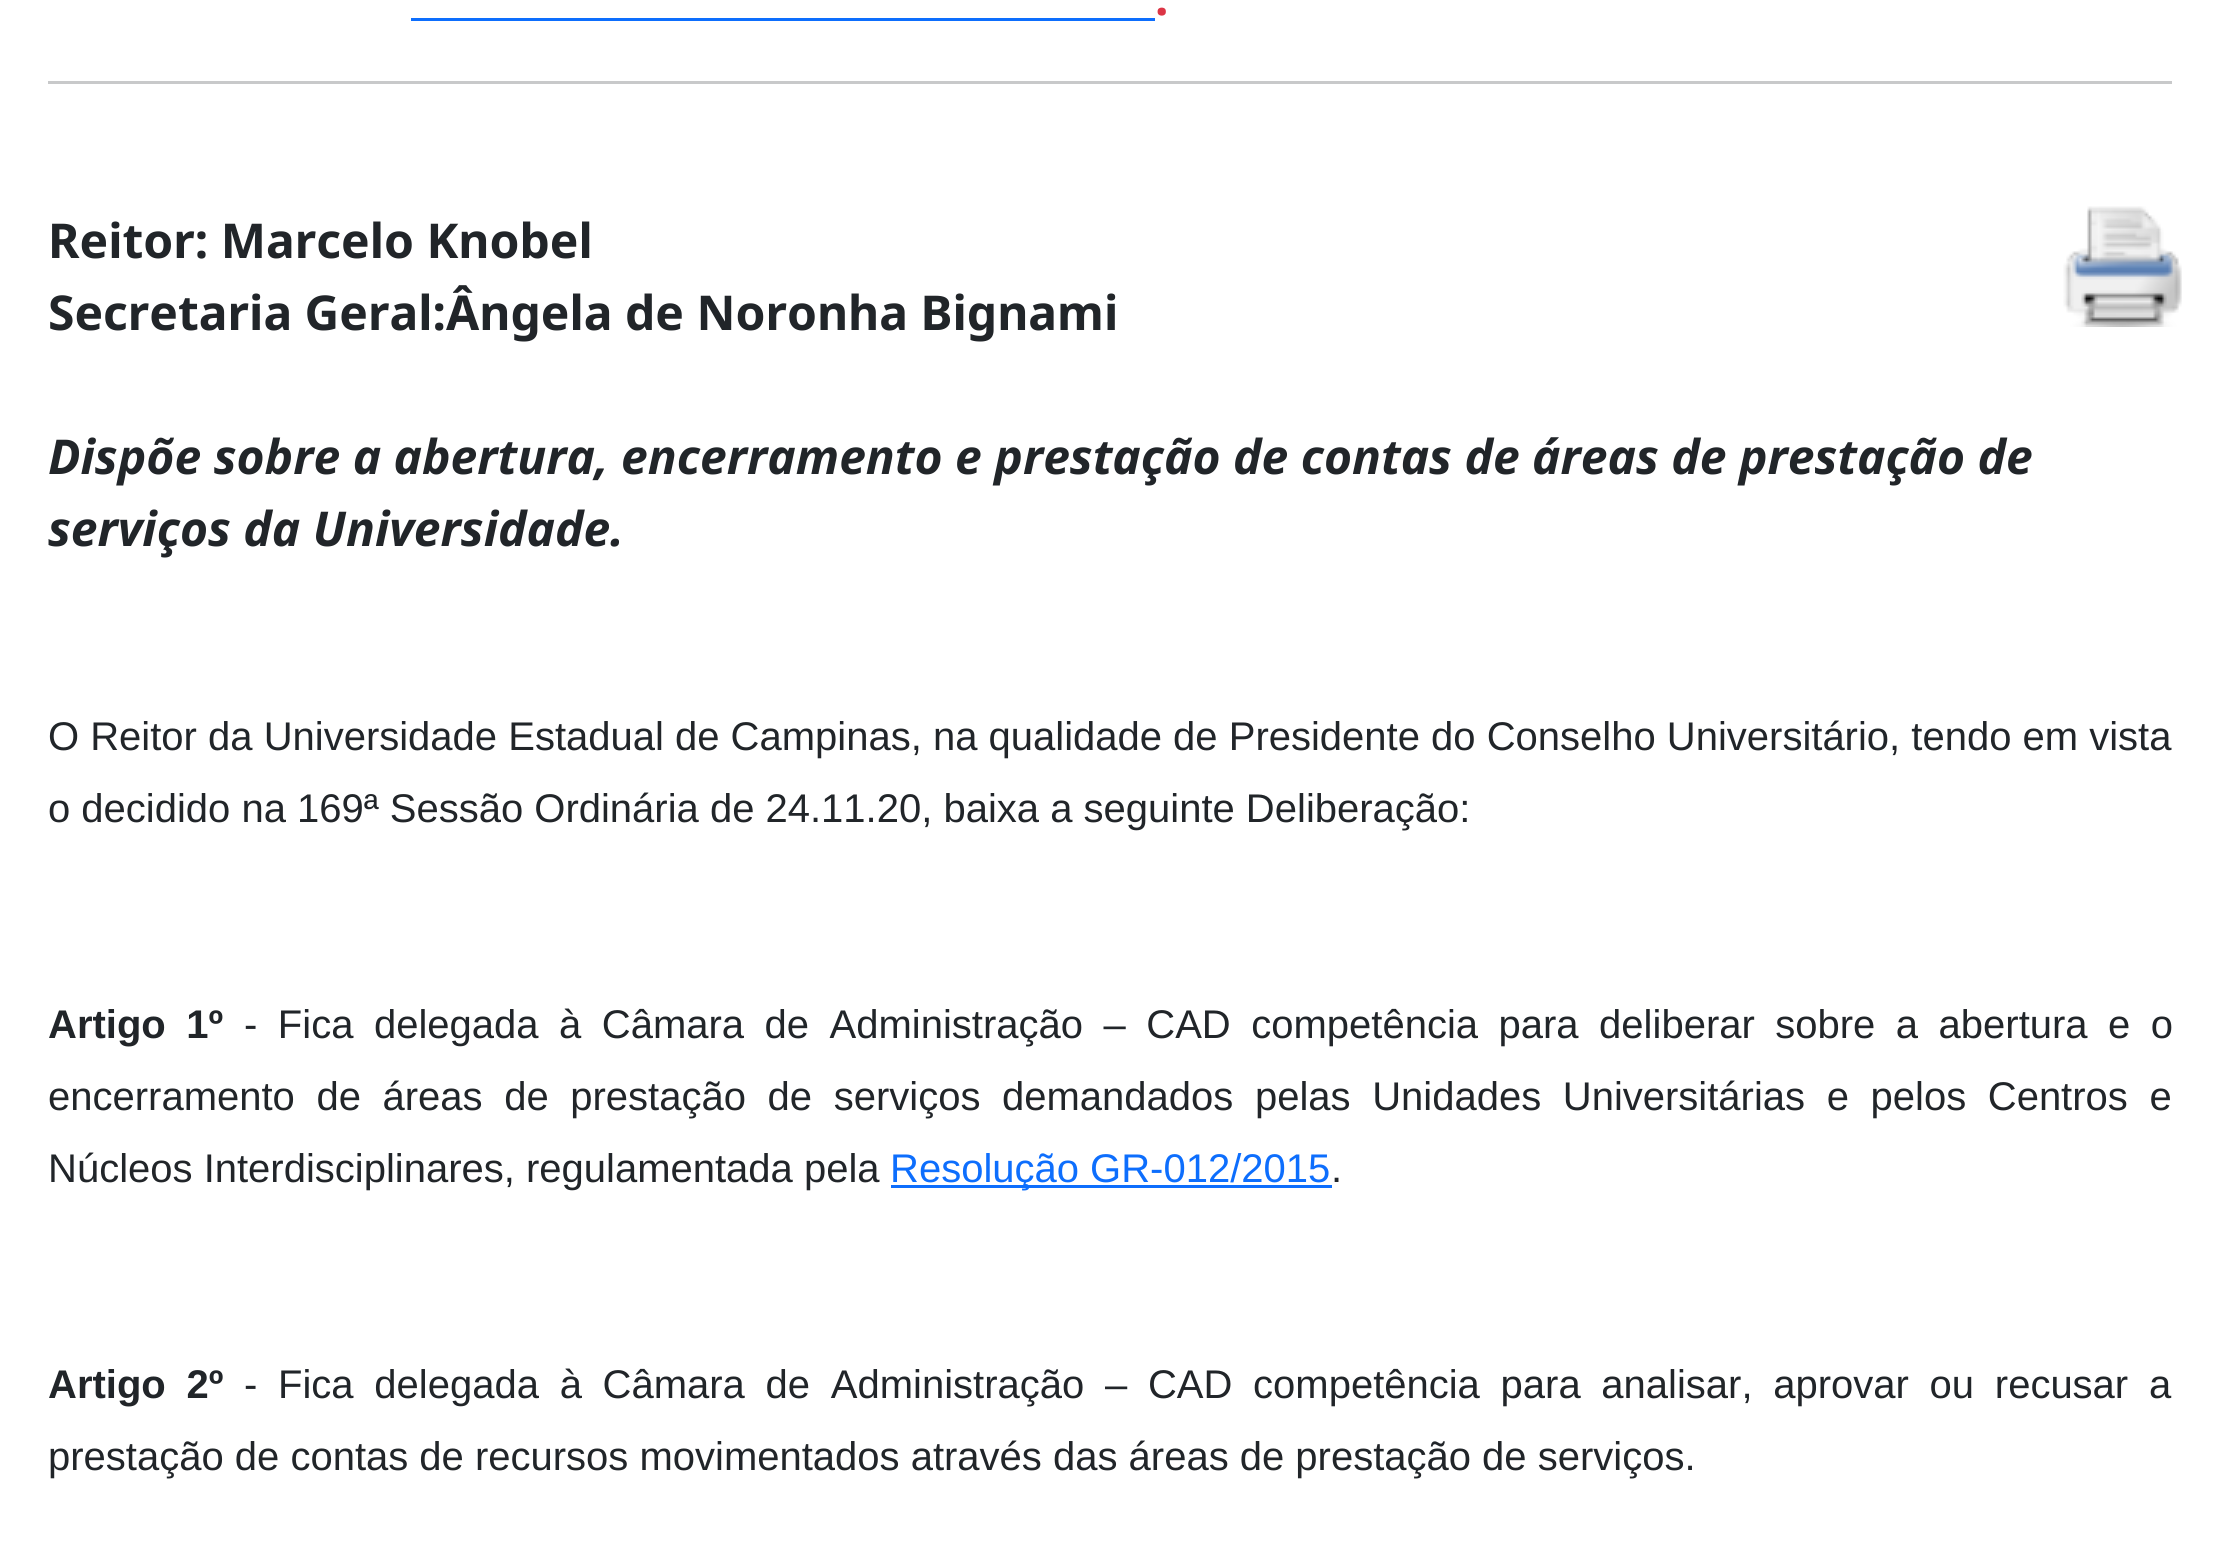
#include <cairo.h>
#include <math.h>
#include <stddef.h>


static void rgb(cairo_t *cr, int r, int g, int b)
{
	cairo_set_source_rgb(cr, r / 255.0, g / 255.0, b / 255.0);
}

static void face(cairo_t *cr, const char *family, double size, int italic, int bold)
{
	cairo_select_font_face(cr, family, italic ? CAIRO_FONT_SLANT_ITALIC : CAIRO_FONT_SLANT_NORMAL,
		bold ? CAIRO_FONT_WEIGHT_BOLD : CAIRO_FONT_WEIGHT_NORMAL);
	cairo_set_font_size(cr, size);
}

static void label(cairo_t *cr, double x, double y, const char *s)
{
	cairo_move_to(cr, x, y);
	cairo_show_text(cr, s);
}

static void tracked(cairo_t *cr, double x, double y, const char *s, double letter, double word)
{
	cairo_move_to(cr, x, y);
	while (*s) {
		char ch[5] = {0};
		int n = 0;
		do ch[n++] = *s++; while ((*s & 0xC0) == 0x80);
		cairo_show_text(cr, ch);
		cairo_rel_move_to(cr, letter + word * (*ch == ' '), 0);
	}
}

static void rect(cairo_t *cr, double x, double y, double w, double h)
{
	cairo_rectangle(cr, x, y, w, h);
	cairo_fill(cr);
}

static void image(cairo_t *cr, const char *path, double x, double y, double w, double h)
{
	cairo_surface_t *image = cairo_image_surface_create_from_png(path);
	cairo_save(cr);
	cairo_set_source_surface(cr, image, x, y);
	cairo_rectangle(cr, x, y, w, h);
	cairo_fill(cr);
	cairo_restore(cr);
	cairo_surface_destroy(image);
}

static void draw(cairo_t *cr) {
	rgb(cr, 255, 255, 255);
	cairo_paint(cr);
	face(cr, "Noto Sans", 48, 0, 1);
	rgb(cr, 220, 53, 69);
	label(cr, 1155, 15, ".");
	rgb(cr, 13, 110, 253);
	rect(cr, 411, 18, 744, 3);
	rgb(cr, 200, 201, 202);
	rect(cr, 48, 81, 2124, 3);
	rgb(cr, 33, 37, 41);
	label(cr, 48, 258, "Reitor: Marcelo Knobel");
	label(cr, 48, 330, "Secretaria Geral:Ângela de Noronha Bignami");
	image(cr, "image0.png", 2063, 206, 119, 121);
	face(cr, "Noto Sans", 48, 1, 1);
	label(cr, 48, 474, "Dispõe sobre a abertura, encerramento e prestação de contas de áreas de prestação de");
	label(cr, 48, 546, "serviços da Universidade.");
	face(cr, "Liberation Sans", 40, 0, 0);
	label(cr, 48, 750, "O Reitor da Universidade Estadual de Campinas, na qualidade de Presidente do Conselho Universitário, tendo em vista");
	label(cr, 48, 822, "o decidido na 169ª Sessão Ordinária de 24.11.20, baixa a seguinte Deliberação:");
	face(cr, "Liberation Sans", 40, 0, 1);
	tracked(cr, 48, 1038, "Artigo 1º", 0, 9.4);
	face(cr, "Liberation Sans", 40, 0, 0);
	tracked(cr, 244, 1038, "- Fica delegada à Câmara de Administração – CAD competência para deliberar sobre a abertura e o", 0, 9.4);
	tracked(cr, 48, 1110, "encerramento de áreas de prestação de serviços demandados pelas Unidades Universitárias e pelos Centros e", 0, 10.5);
	label(cr, 48, 1182, "Núcleos Interdisciplinares, regulamentada pela");
	rgb(cr, 13, 110, 253);
	rect(cr, 891, 1185, 441, 3);
	label(cr, 890, 1182, "Resolução GR-012/2015");
	rgb(cr, 33, 37, 41);
	label(cr, 1331, 1182, ".");
	face(cr, "Liberation Sans", 40, 0, 1);
	tracked(cr, 48, 1398, "Artigo 2º", 0, 9.6);
	face(cr, "Liberation Sans", 40, 0, 0);
	tracked(cr, 244, 1398, "- Fica delegada à Câmara de Administração – CAD competência para analisar, aprovar ou recusar a", 0, 9.6);
	label(cr, 48, 1470, "prestação de contas de recursos movimentados através das áreas de prestação de serviços.");
}

int main(void) {
	cairo_surface_t *surface = cairo_image_surface_create(CAIRO_FORMAT_RGB24, 2218, 1552);
	cairo_t *cr = cairo_create(surface);
	cairo_font_options_t *options = cairo_font_options_create();
	cairo_font_options_set_hint_metrics(options, CAIRO_HINT_METRICS_OFF);
	cairo_font_options_set_hint_style(options, CAIRO_HINT_STYLE_NONE);
	cairo_set_font_options(cr, options);
	cairo_set_miter_limit(cr, 4);
	draw(cr);
	cairo_surface_write_to_png(surface, "render.png");
	cairo_font_options_destroy(options);
	cairo_destroy(cr);
	cairo_surface_destroy(surface);
	return 0;
}
